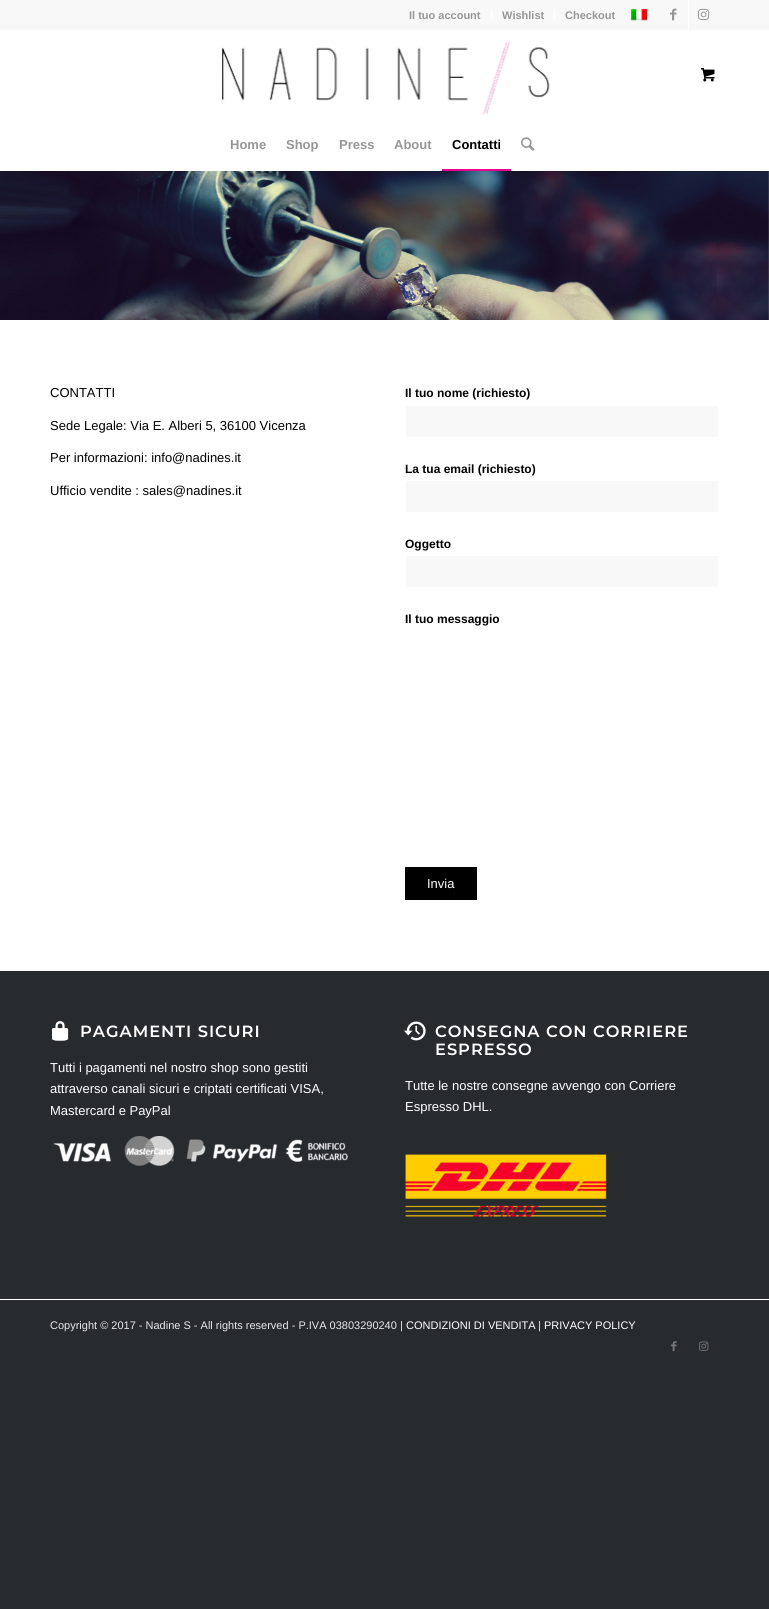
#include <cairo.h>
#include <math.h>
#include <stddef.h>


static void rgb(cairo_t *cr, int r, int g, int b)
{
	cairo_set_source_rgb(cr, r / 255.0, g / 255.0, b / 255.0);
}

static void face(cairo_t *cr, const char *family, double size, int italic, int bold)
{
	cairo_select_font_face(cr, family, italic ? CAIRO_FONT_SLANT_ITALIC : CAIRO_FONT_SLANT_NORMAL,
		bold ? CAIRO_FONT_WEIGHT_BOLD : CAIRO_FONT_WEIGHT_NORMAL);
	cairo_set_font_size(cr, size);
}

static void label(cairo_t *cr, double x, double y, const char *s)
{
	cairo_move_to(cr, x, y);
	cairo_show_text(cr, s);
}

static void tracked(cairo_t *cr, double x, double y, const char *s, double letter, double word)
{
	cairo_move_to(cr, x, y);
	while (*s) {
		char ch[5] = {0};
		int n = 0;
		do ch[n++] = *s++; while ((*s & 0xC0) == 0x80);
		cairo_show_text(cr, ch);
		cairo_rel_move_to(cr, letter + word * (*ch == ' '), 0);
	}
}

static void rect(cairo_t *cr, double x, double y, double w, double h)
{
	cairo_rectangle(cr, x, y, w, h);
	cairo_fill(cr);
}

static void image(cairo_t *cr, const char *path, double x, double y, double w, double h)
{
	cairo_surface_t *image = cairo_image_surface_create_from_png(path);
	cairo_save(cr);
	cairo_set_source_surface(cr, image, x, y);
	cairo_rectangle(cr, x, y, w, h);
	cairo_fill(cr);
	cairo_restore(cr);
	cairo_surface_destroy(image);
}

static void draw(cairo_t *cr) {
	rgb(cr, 40, 43, 46);
	cairo_paint(cr);
	rgb(cr, 248, 248, 248);
	rect(cr, 0, 0, 769, 30);
	rgb(cr, 255, 255, 255);
	rect(cr, 491, 10, 1, 10);
	face(cr, "Liberation Sans", 11, 0, 1);
	rgb(cr, 150, 150, 150);
	label(cr, 409, 19, "Il tuo account");
	rgb(cr, 255, 255, 255);
	rect(cr, 554, 10, 1, 10);
	rgb(cr, 150, 150, 150);
	label(cr, 502, 19, "Wishlist");
	label(cr, 565, 19, "Checkout");
	image(cr, "image0.png", 630, 8, 18, 13);
	rgb(cr, 255, 255, 255);
	rect(cr, 688, 0, 1, 30);
	image(cr, "image1.png", 670, 8, 7, 13);
	image(cr, "image2.png", 698, 8, 12, 12);
	rect(cr, 0, 30, 769, 941);
	image(cr, "image3.png", 222, 41, 328, 74);
	image(cr, "image4.png", 701, 68, 14, 14);
	face(cr, "Liberation Sans", 13, 0, 1);
	rgb(cr, 150, 150, 150);
	label(cr, 230, 149, "Home");
	label(cr, 286, 149, "Shop");
	label(cr, 339, 149, "Press");
	label(cr, 394, 149, "About");
	rgb(cr, 0, 0, 0);
	label(cr, 452, 149, "Contatti");
	rgb(cr, 236, 0, 142);
	rect(cr, 442, 169, 69, 2);
	image(cr, "image5.png", 521, 137, 14, 14);
	image(cr, "image6.png", 0, 171, 769, 149);
	face(cr, "Liberation Sans", 13, 0, 0);
	rgb(cr, 0, 0, 0);
	label(cr, 50, 397, "CONTATTI");
	label(cr, 50, 430, "Sede Legale: Via E. Alberi 5, 36100 Vicenza");
	label(cr, 50, 462, "Per informazioni: info@nadines.it");
	label(cr, 50, 495, "Ufficio vendite : sales@nadines.it");
	face(cr, "Liberation Sans", 12, 0, 1);
	label(cr, 405, 397, "Il tuo nome (richiesto)");
	rgb(cr, 248, 248, 248);
	rect(cr, 406, 406, 312, 31);
	rgb(cr, 0, 0, 0);
	label(cr, 405, 473, "La tua email (richiesto)");
	rgb(cr, 248, 248, 248);
	rect(cr, 406, 481, 312, 31);
	rgb(cr, 0, 0, 0);
	label(cr, 405, 548, "Oggetto");
	rgb(cr, 248, 248, 248);
	rect(cr, 406, 556, 312, 31);
	rgb(cr, 0, 0, 0);
	label(cr, 405, 623, "Il tuo messaggio");
	rect(cr, 405, 867, 72, 33);
	face(cr, "Liberation Sans", 13, 0, 0);
	rgb(cr, 255, 255, 255);
	label(cr, 427, 888, "Invia");
	image(cr, "image7.png", 52, 1021, 17, 20);
	face(cr, "Montserrat SemiBold", 16.25, 0, 0);
	tracked(cr, 80, 1037, "PAGAMENTI SICURI", 1, 0);
	face(cr, "Liberation Sans", 13, 0, 0);
	label(cr, 50, 1072, "Tutti i pagamenti nel nostro shop sono gestiti");
	label(cr, 50, 1093, "attraverso canali sicuri e criptati certificati VISA,");
	label(cr, 50, 1115, "Mastercard e PayPal");
	image(cr, "image8.png", 53, 1136, 295, 30);
	image(cr, "image9.png", 404, 1021, 22, 20);
	face(cr, "Montserrat SemiBold", 16.25, 0, 0);
	tracked(cr, 435, 1037, "CONSEGNA CON CORRIERE", 1, 0);
	tracked(cr, 435, 1055, "ESPRESSO", 1, 0);
	face(cr, "Liberation Sans", 13, 0, 0);
	label(cr, 405, 1090, "Tutte le nostre consegne avvengo con Corriere");
	label(cr, 405, 1111, "Espresso DHL.");
	image(cr, "image10.png", 405, 1154, 202, 63);
	rect(cr, 0, 1299, 769, 1);
	face(cr, "Liberation Sans", 11, 0, 0);
	rgb(cr, 232, 232, 232);
	label(cr, 50, 1329, "Copyright © 2017 - Nadine S - All rights reserved - P.IVA 03803290240 |");
	rgb(cr, 255, 255, 255);
	label(cr, 406, 1329, "CONDIZIONI DI VENDITA");
	rgb(cr, 232, 232, 232);
	label(cr, 538, 1329, "|");
	rgb(cr, 255, 255, 255);
	label(cr, 544, 1329, "PRIVACY POLICY");
	image(cr, "image11.png", 671, 1341, 6, 11);
	image(cr, "image12.png", 699, 1341, 10, 10);
}

int main(void) {
	cairo_surface_t *surface = cairo_image_surface_create(CAIRO_FORMAT_RGB24, 769, 1609);
	cairo_t *cr = cairo_create(surface);
	cairo_font_options_t *options = cairo_font_options_create();
	cairo_font_options_set_hint_metrics(options, CAIRO_HINT_METRICS_OFF);
	cairo_font_options_set_hint_style(options, CAIRO_HINT_STYLE_NONE);
	cairo_set_font_options(cr, options);
	cairo_set_miter_limit(cr, 4);
	draw(cr);
	cairo_surface_write_to_png(surface, "render.png");
	cairo_font_options_destroy(options);
	cairo_destroy(cr);
	cairo_surface_destroy(surface);
	return 0;
}
